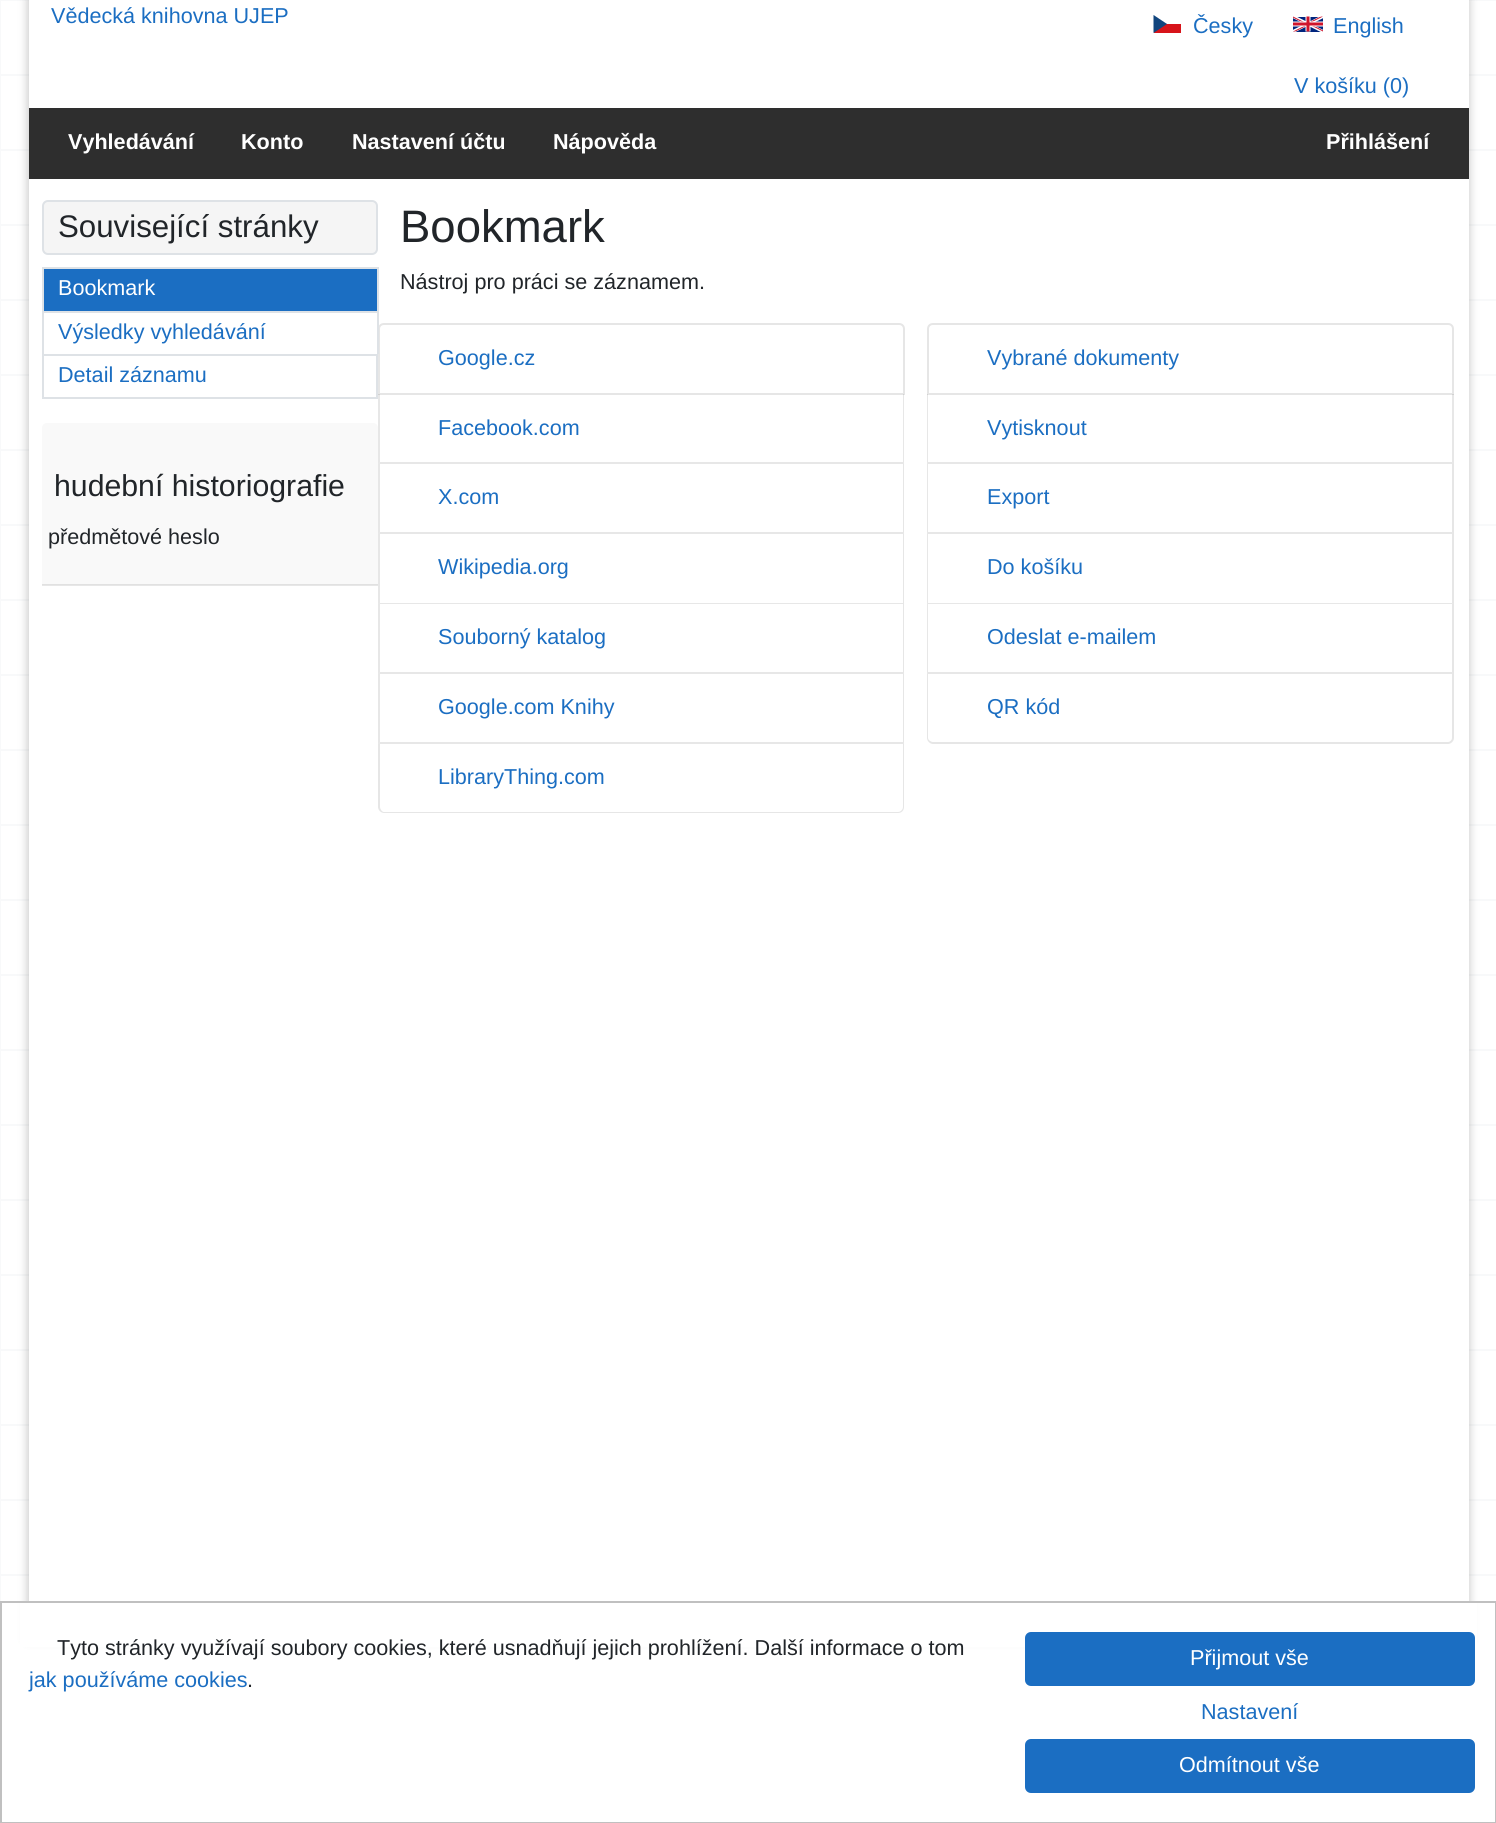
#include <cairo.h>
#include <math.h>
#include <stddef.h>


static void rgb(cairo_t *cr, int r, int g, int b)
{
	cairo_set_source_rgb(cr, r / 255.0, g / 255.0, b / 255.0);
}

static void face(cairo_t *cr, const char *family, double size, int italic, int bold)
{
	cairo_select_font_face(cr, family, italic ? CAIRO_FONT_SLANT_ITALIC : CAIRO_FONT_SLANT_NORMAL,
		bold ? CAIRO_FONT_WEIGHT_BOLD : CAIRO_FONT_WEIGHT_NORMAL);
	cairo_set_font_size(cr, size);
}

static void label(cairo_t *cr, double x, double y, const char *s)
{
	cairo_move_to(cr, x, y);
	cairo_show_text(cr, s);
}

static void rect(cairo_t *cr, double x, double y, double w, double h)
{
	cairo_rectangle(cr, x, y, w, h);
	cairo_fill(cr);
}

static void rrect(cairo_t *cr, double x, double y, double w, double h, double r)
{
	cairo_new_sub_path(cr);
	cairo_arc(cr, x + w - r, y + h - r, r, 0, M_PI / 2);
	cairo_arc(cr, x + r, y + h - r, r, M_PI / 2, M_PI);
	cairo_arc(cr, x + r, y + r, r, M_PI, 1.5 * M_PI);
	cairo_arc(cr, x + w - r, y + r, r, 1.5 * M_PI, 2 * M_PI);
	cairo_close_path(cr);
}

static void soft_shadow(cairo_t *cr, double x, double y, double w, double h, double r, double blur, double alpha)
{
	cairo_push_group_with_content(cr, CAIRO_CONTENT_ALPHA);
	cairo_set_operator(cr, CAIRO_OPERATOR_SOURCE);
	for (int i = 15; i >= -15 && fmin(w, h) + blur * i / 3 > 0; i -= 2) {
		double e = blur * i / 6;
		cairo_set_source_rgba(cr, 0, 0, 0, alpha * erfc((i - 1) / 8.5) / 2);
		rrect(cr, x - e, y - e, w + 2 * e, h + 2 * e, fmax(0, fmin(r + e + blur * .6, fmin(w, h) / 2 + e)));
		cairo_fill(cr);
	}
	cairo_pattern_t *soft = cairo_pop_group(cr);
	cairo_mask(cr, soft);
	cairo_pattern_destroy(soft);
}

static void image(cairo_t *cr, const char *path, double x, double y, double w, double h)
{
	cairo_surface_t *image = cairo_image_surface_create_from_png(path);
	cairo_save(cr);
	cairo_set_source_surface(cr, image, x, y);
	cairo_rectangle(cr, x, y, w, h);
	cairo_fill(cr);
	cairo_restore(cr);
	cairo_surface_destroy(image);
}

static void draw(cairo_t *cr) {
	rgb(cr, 255, 255, 255);
	cairo_paint(cr);
	rgb(cr, 248, 249, 250);
	rect(cr, 0, 0, 1, 1601);
	image(cr, "image0.png", 1, 0, 1495, 1576);
	rgb(cr, 0, 0, 0);
	soft_shadow(cr, 27, -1, 1443, 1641, 0, 4.5, 0.2);
	rgb(cr, 255, 255, 255);
	rect(cr, 29, 0, 1440, 1601);
	rgb(cr, 231, 231, 231);
	rect(cr, 42, 585, 336, 1);
	face(cr, "Liberation Sans", 21.6, 0, 0);
	rgb(cr, 27, 110, 194);
	label(cr, 51, 23, "Vědecká knihovna UJEP");
	rgb(cr, 215, 20, 26);
	rect(cr, 1154, 24, 27, 9);
	rgb(cr, 17, 69, 126);
	cairo_new_path(cr);
	cairo_move_to(cr, 1167, 24);
	cairo_line_to(cr, 1153.5, 15);
	cairo_line_to(cr, 1153.5, 33);
	cairo_close_path(cr);
	cairo_fill(cr);
	rgb(cr, 27, 110, 194);
	label(cr, 1193, 33, "Česky");
	image(cr, "image1.png", 1293, 16, 30, 16);
	label(cr, 1333, 33, "English");
	label(cr, 1294, 93, "V košíku (0)");
	rgb(cr, 46, 46, 46);
	rect(cr, 29, 108, 1440, 71);
	face(cr, "Liberation Sans", 21.6, 0, 1);
	rgb(cr, 255, 255, 255);
	label(cr, 68, 149, "Vyhledávání");
	label(cr, 241, 149, "Konto");
	label(cr, 352, 149, "Nastavení účtu");
	label(cr, 553, 149, "Nápověda");
	label(cr, 1326, 149, "Přihlášení");
	rgb(cr, 245, 245, 245);
	rrect(cr, 43, 201, 334, 53, 5);
	cairo_fill_preserve(cr);
	rgb(cr, 222, 226, 230);
	cairo_stroke(cr);
	face(cr, "Liberation Sans", 31.25, 0, 0);
	rgb(cr, 33, 37, 41);
	label(cr, 58, 237, "Související stránky");
	rgb(cr, 222, 226, 230);
	rect(cr, 42, 267, 336, 2);
	rect(cr, 377, 267, 2, 44);
	rect(cr, 42, 267, 2, 44);
	rgb(cr, 27, 110, 194);
	rect(cr, 44, 269, 333, 42);
	face(cr, "Liberation Sans", 21.6, 0, 0);
	rgb(cr, 255, 255, 255);
	label(cr, 58, 295, "Bookmark");
	rgb(cr, 222, 226, 230);
	rect(cr, 42, 311, 336, 2);
	cairo_new_path(cr);
	cairo_move_to(cr, 384, 324);
	cairo_line_to(cr, 899, 324);
	cairo_curve_to(cr, 902, 324, 904, 326, 904, 329);
	cairo_line_to(cr, 904, 394);
	cairo_line_to(cr, 379, 394);
	cairo_line_to(cr, 379, 329);
	cairo_curve_to(cr, 379, 326, 381, 324, 384, 324);
	cairo_close_path(cr);
	rgb(cr, 230, 230, 230);
	cairo_stroke(cr);
	rgb(cr, 222, 226, 230);
	rect(cr, 377, 311, 2, 43);
	rect(cr, 42, 311, 2, 43);
	rgb(cr, 27, 110, 194);
	label(cr, 58, 339, "Výsledky vyhledávání");
	cairo_rectangle(cr, 43, 355, 334, 43);
	rgb(cr, 222, 226, 230);
	cairo_stroke(cr);
	rgb(cr, 27, 110, 194);
	label(cr, 58, 382, "Detail záznamu");
	rgb(cr, 249, 249, 249);
	cairo_new_path(cr);
	cairo_move_to(cr, 47, 423);
	cairo_line_to(cr, 373, 423);
	cairo_curve_to(cr, 376, 423, 378, 425, 378, 428);
	cairo_line_to(cr, 378, 585);
	cairo_line_to(cr, 42, 585);
	cairo_line_to(cr, 42, 428);
	cairo_curve_to(cr, 42, 425, 44, 423, 47, 423);
	cairo_close_path(cr);
	cairo_fill(cr);
	rgb(cr, 225, 225, 225);
	rect(cr, 42, 584, 336, 1);
	face(cr, "Liberation Sans", 30.25, 0, 0);
	rgb(cr, 33, 37, 41);
	label(cr, 54, 496, "hudební historiografie");
	face(cr, "Liberation Sans", 21.6, 0, 0);
	label(cr, 48, 544, "předmětové heslo");
	face(cr, "Liberation Sans", 45.5, 0, 0);
	label(cr, 400, 242, "Bookmark");
	face(cr, "Liberation Sans", 21.6, 0, 0);
	label(cr, 400, 289, "Nástroj pro práci se záznamem.");
	rgb(cr, 27, 110, 194);
	label(cr, 438, 365, "Google.cz");
	cairo_set_source_rgba(cr, 0.2, 0.2, 0.2, 0.12);
	cairo_new_path(cr);
	cairo_move_to(cr, 904, 394);
	cairo_line_to(cr, 904, 464);
	cairo_line_to(cr, 903, 462);
	cairo_line_to(cr, 903, 394);
	cairo_close_path(cr);
	cairo_fill(cr);
	cairo_new_path(cr);
	cairo_move_to(cr, 904, 464);
	cairo_line_to(cr, 378, 464);
	cairo_line_to(cr, 380, 462);
	cairo_line_to(cr, 903, 462);
	cairo_close_path(cr);
	cairo_fill(cr);
	cairo_new_path(cr);
	cairo_move_to(cr, 378, 464);
	cairo_line_to(cr, 378, 394);
	cairo_line_to(cr, 380, 394);
	cairo_line_to(cr, 380, 462);
	cairo_close_path(cr);
	cairo_fill(cr);
	rgb(cr, 27, 110, 194);
	label(cr, 438, 435, "Facebook.com");
	rgb(cr, 230, 230, 230);
	cairo_new_path(cr);
	cairo_move_to(cr, 904, 464);
	cairo_line_to(cr, 904, 534);
	cairo_line_to(cr, 903, 532);
	cairo_line_to(cr, 903, 464);
	cairo_close_path(cr);
	cairo_fill(cr);
	cairo_set_source_rgba(cr, 0.2, 0.2, 0.2, 0.12);
	cairo_new_path(cr);
	cairo_move_to(cr, 904, 534);
	cairo_line_to(cr, 378, 534);
	cairo_line_to(cr, 380, 532);
	cairo_line_to(cr, 903, 532);
	cairo_close_path(cr);
	cairo_fill(cr);
	cairo_new_path(cr);
	cairo_move_to(cr, 378, 534);
	cairo_line_to(cr, 378, 464);
	cairo_line_to(cr, 380, 464);
	cairo_line_to(cr, 380, 532);
	cairo_close_path(cr);
	cairo_fill(cr);
	rgb(cr, 27, 110, 194);
	label(cr, 438, 504, "X.com");
	rgb(cr, 230, 230, 230);
	cairo_new_path(cr);
	cairo_move_to(cr, 904, 534);
	cairo_line_to(cr, 904, 604);
	cairo_line_to(cr, 903, 603);
	cairo_line_to(cr, 903, 534);
	cairo_close_path(cr);
	cairo_fill(cr);
	cairo_set_source_rgba(cr, 0.2, 0.2, 0.2, 0.12);
	cairo_new_path(cr);
	cairo_move_to(cr, 904, 604);
	cairo_line_to(cr, 378, 604);
	cairo_line_to(cr, 380, 603);
	cairo_line_to(cr, 903, 603);
	cairo_close_path(cr);
	cairo_fill(cr);
	cairo_new_path(cr);
	cairo_move_to(cr, 378, 604);
	cairo_line_to(cr, 378, 534);
	cairo_line_to(cr, 380, 534);
	cairo_line_to(cr, 380, 603);
	cairo_close_path(cr);
	cairo_fill(cr);
	rgb(cr, 27, 110, 194);
	label(cr, 438, 574, "Wikipedia.org");
	rgb(cr, 230, 230, 230);
	cairo_new_path(cr);
	cairo_move_to(cr, 904, 604);
	cairo_line_to(cr, 904, 674);
	cairo_line_to(cr, 903, 672);
	cairo_line_to(cr, 903, 604);
	cairo_close_path(cr);
	cairo_fill(cr);
	cairo_set_source_rgba(cr, 0.2, 0.2, 0.2, 0.12);
	cairo_new_path(cr);
	cairo_move_to(cr, 904, 674);
	cairo_line_to(cr, 378, 674);
	cairo_line_to(cr, 380, 672);
	cairo_line_to(cr, 903, 672);
	cairo_close_path(cr);
	cairo_fill(cr);
	cairo_new_path(cr);
	cairo_move_to(cr, 378, 674);
	cairo_line_to(cr, 378, 604);
	cairo_line_to(cr, 380, 604);
	cairo_line_to(cr, 380, 672);
	cairo_close_path(cr);
	cairo_fill(cr);
	rgb(cr, 27, 110, 194);
	label(cr, 438, 644, "Souborný katalog");
	rgb(cr, 230, 230, 230);
	cairo_new_path(cr);
	cairo_move_to(cr, 904, 674);
	cairo_line_to(cr, 904, 744);
	cairo_line_to(cr, 903, 742);
	cairo_line_to(cr, 903, 674);
	cairo_close_path(cr);
	cairo_fill(cr);
	cairo_set_source_rgba(cr, 0.2, 0.2, 0.2, 0.12);
	cairo_new_path(cr);
	cairo_move_to(cr, 904, 744);
	cairo_line_to(cr, 378, 744);
	cairo_line_to(cr, 380, 742);
	cairo_line_to(cr, 903, 742);
	cairo_close_path(cr);
	cairo_fill(cr);
	cairo_new_path(cr);
	cairo_move_to(cr, 378, 744);
	cairo_line_to(cr, 378, 674);
	cairo_line_to(cr, 380, 674);
	cairo_line_to(cr, 380, 742);
	cairo_close_path(cr);
	cairo_fill(cr);
	rgb(cr, 27, 110, 194);
	label(cr, 438, 714, "Google.com Knihy");
	rgb(cr, 230, 230, 230);
	cairo_set_fill_rule(cr, CAIRO_FILL_RULE_EVEN_ODD);
	cairo_new_path(cr);
	cairo_move_to(cr, 378, 744);
	cairo_line_to(cr, 904, 744);
	cairo_line_to(cr, 904, 807);
	cairo_curve_to(cr, 904, 810, 902, 813, 898, 813);
	cairo_line_to(cr, 384, 813);
	cairo_curve_to(cr, 381, 813, 378, 810, 378, 807);
	cairo_close_path(cr);
	cairo_move_to(cr, 380, 744);
	cairo_line_to(cr, 903, 744);
	cairo_line_to(cr, 903, 807);
	cairo_curve_to(cr, 903, 809, 901, 812, 898, 812);
	cairo_line_to(cr, 384, 812);
	cairo_curve_to(cr, 382, 812, 380, 809, 380, 807);
	cairo_close_path(cr);
	cairo_fill(cr);
	rgb(cr, 27, 110, 194);
	label(cr, 438, 784, "LibraryThing.com");
	cairo_new_path(cr);
	cairo_move_to(cr, 933, 324);
	cairo_line_to(cr, 1448, 324);
	cairo_curve_to(cr, 1451, 324, 1453, 326, 1453, 329);
	cairo_line_to(cr, 1453, 394);
	cairo_line_to(cr, 928, 394);
	cairo_line_to(cr, 928, 329);
	cairo_curve_to(cr, 928, 326, 930, 324, 933, 324);
	cairo_close_path(cr);
	rgb(cr, 230, 230, 230);
	cairo_stroke(cr);
	rgb(cr, 27, 110, 194);
	label(cr, 987, 365, "Vybrané dokumenty");
	cairo_set_source_rgba(cr, 0.2, 0.2, 0.2, 0.12);
	cairo_set_fill_rule(cr, CAIRO_FILL_RULE_WINDING);
	cairo_new_path(cr);
	cairo_move_to(cr, 1454, 394);
	cairo_line_to(cr, 1454, 464);
	cairo_line_to(cr, 1452, 462);
	cairo_line_to(cr, 1452, 394);
	cairo_close_path(cr);
	cairo_fill(cr);
	cairo_new_path(cr);
	cairo_move_to(cr, 1454, 464);
	cairo_line_to(cr, 927, 464);
	cairo_line_to(cr, 928, 462);
	cairo_line_to(cr, 1452, 462);
	cairo_close_path(cr);
	cairo_fill(cr);
	cairo_new_path(cr);
	cairo_move_to(cr, 927, 464);
	cairo_line_to(cr, 927, 394);
	cairo_line_to(cr, 928, 394);
	cairo_line_to(cr, 928, 462);
	cairo_close_path(cr);
	cairo_fill(cr);
	rgb(cr, 27, 110, 194);
	label(cr, 987, 435, "Vytisknout");
	rgb(cr, 230, 230, 230);
	cairo_new_path(cr);
	cairo_move_to(cr, 1454, 464);
	cairo_line_to(cr, 1454, 534);
	cairo_line_to(cr, 1452, 532);
	cairo_line_to(cr, 1452, 464);
	cairo_close_path(cr);
	cairo_fill(cr);
	cairo_set_source_rgba(cr, 0.2, 0.2, 0.2, 0.12);
	cairo_new_path(cr);
	cairo_move_to(cr, 1454, 534);
	cairo_line_to(cr, 927, 534);
	cairo_line_to(cr, 928, 532);
	cairo_line_to(cr, 1452, 532);
	cairo_close_path(cr);
	cairo_fill(cr);
	cairo_new_path(cr);
	cairo_move_to(cr, 927, 534);
	cairo_line_to(cr, 927, 464);
	cairo_line_to(cr, 928, 464);
	cairo_line_to(cr, 928, 532);
	cairo_close_path(cr);
	cairo_fill(cr);
	rgb(cr, 27, 110, 194);
	label(cr, 987, 504, "Export");
	rgb(cr, 230, 230, 230);
	cairo_new_path(cr);
	cairo_move_to(cr, 1454, 534);
	cairo_line_to(cr, 1454, 604);
	cairo_line_to(cr, 1452, 603);
	cairo_line_to(cr, 1452, 534);
	cairo_close_path(cr);
	cairo_fill(cr);
	cairo_set_source_rgba(cr, 0.2, 0.2, 0.2, 0.12);
	cairo_new_path(cr);
	cairo_move_to(cr, 1454, 604);
	cairo_line_to(cr, 927, 604);
	cairo_line_to(cr, 928, 603);
	cairo_line_to(cr, 1452, 603);
	cairo_close_path(cr);
	cairo_fill(cr);
	cairo_new_path(cr);
	cairo_move_to(cr, 927, 604);
	cairo_line_to(cr, 927, 534);
	cairo_line_to(cr, 928, 534);
	cairo_line_to(cr, 928, 603);
	cairo_close_path(cr);
	cairo_fill(cr);
	rgb(cr, 27, 110, 194);
	label(cr, 987, 574, "Do košíku");
	rgb(cr, 230, 230, 230);
	cairo_new_path(cr);
	cairo_move_to(cr, 1454, 604);
	cairo_line_to(cr, 1454, 674);
	cairo_line_to(cr, 1452, 672);
	cairo_line_to(cr, 1452, 604);
	cairo_close_path(cr);
	cairo_fill(cr);
	cairo_set_source_rgba(cr, 0.2, 0.2, 0.2, 0.12);
	cairo_new_path(cr);
	cairo_move_to(cr, 1454, 674);
	cairo_line_to(cr, 927, 674);
	cairo_line_to(cr, 928, 672);
	cairo_line_to(cr, 1452, 672);
	cairo_close_path(cr);
	cairo_fill(cr);
	cairo_new_path(cr);
	cairo_move_to(cr, 927, 674);
	cairo_line_to(cr, 927, 604);
	cairo_line_to(cr, 928, 604);
	cairo_line_to(cr, 928, 672);
	cairo_close_path(cr);
	cairo_fill(cr);
	rgb(cr, 27, 110, 194);
	label(cr, 987, 644, "Odeslat e-mailem");
	rgb(cr, 230, 230, 230);
	cairo_set_fill_rule(cr, CAIRO_FILL_RULE_EVEN_ODD);
	cairo_new_path(cr);
	cairo_move_to(cr, 927, 674);
	cairo_line_to(cr, 1454, 674);
	cairo_line_to(cr, 1454, 738);
	cairo_curve_to(cr, 1454, 741, 1451, 744, 1448, 744);
	cairo_line_to(cr, 933, 744);
	cairo_curve_to(cr, 930, 744, 927, 741, 927, 738);
	cairo_close_path(cr);
	cairo_move_to(cr, 928, 674);
	cairo_line_to(cr, 1452, 674);
	cairo_line_to(cr, 1452, 738);
	cairo_curve_to(cr, 1452, 740, 1450, 742, 1448, 742);
	cairo_line_to(cr, 933, 742);
	cairo_curve_to(cr, 931, 742, 928, 740, 928, 738);
	cairo_close_path(cr);
	cairo_fill(cr);
	rgb(cr, 27, 110, 194);
	label(cr, 987, 714, "QR kód");
	rgb(cr, 255, 255, 255);
	rect(cr, 20, 1603, 1457, 44);
	cairo_rectangle(cr, 1, 1602, 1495, 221);
	rgb(cr, 192, 192, 192);
	cairo_stroke(cr);
	rgb(cr, 33, 37, 41);
	label(cr, 57, 1655, "Tyto stránky využívají soubory cookies, které usnadňují jejich prohlížení. Další informace o tom");
	rgb(cr, 27, 110, 194);
	label(cr, 29, 1687, "jak používáme cookies");
	rgb(cr, 33, 37, 41);
	label(cr, 247, 1687, ".");
	rgb(cr, 27, 110, 194);
	rrect(cr, 1026, 1633, 448, 52, 5);
	cairo_fill_preserve(cr);
	cairo_stroke(cr);
	rgb(cr, 255, 255, 255);
	label(cr, 1190, 1665, "Přijmout vše");
	rgb(cr, 27, 110, 194);
	label(cr, 1201, 1719, "Nastavení");
	rrect(cr, 1026, 1740, 448, 52, 5);
	cairo_fill_preserve(cr);
	cairo_stroke(cr);
	rgb(cr, 255, 255, 255);
	label(cr, 1179, 1772, "Odmítnout vše");
}

int main(void) {
	cairo_surface_t *surface = cairo_image_surface_create(CAIRO_FORMAT_RGB24, 1496, 1823);
	cairo_t *cr = cairo_create(surface);
	cairo_font_options_t *options = cairo_font_options_create();
	cairo_font_options_set_hint_metrics(options, CAIRO_HINT_METRICS_OFF);
	cairo_font_options_set_hint_style(options, CAIRO_HINT_STYLE_NONE);
	cairo_set_font_options(cr, options);
	cairo_set_miter_limit(cr, 4);
	draw(cr);
	cairo_surface_write_to_png(surface, "render.png");
	cairo_font_options_destroy(options);
	cairo_destroy(cr);
	cairo_surface_destroy(surface);
	return 0;
}
